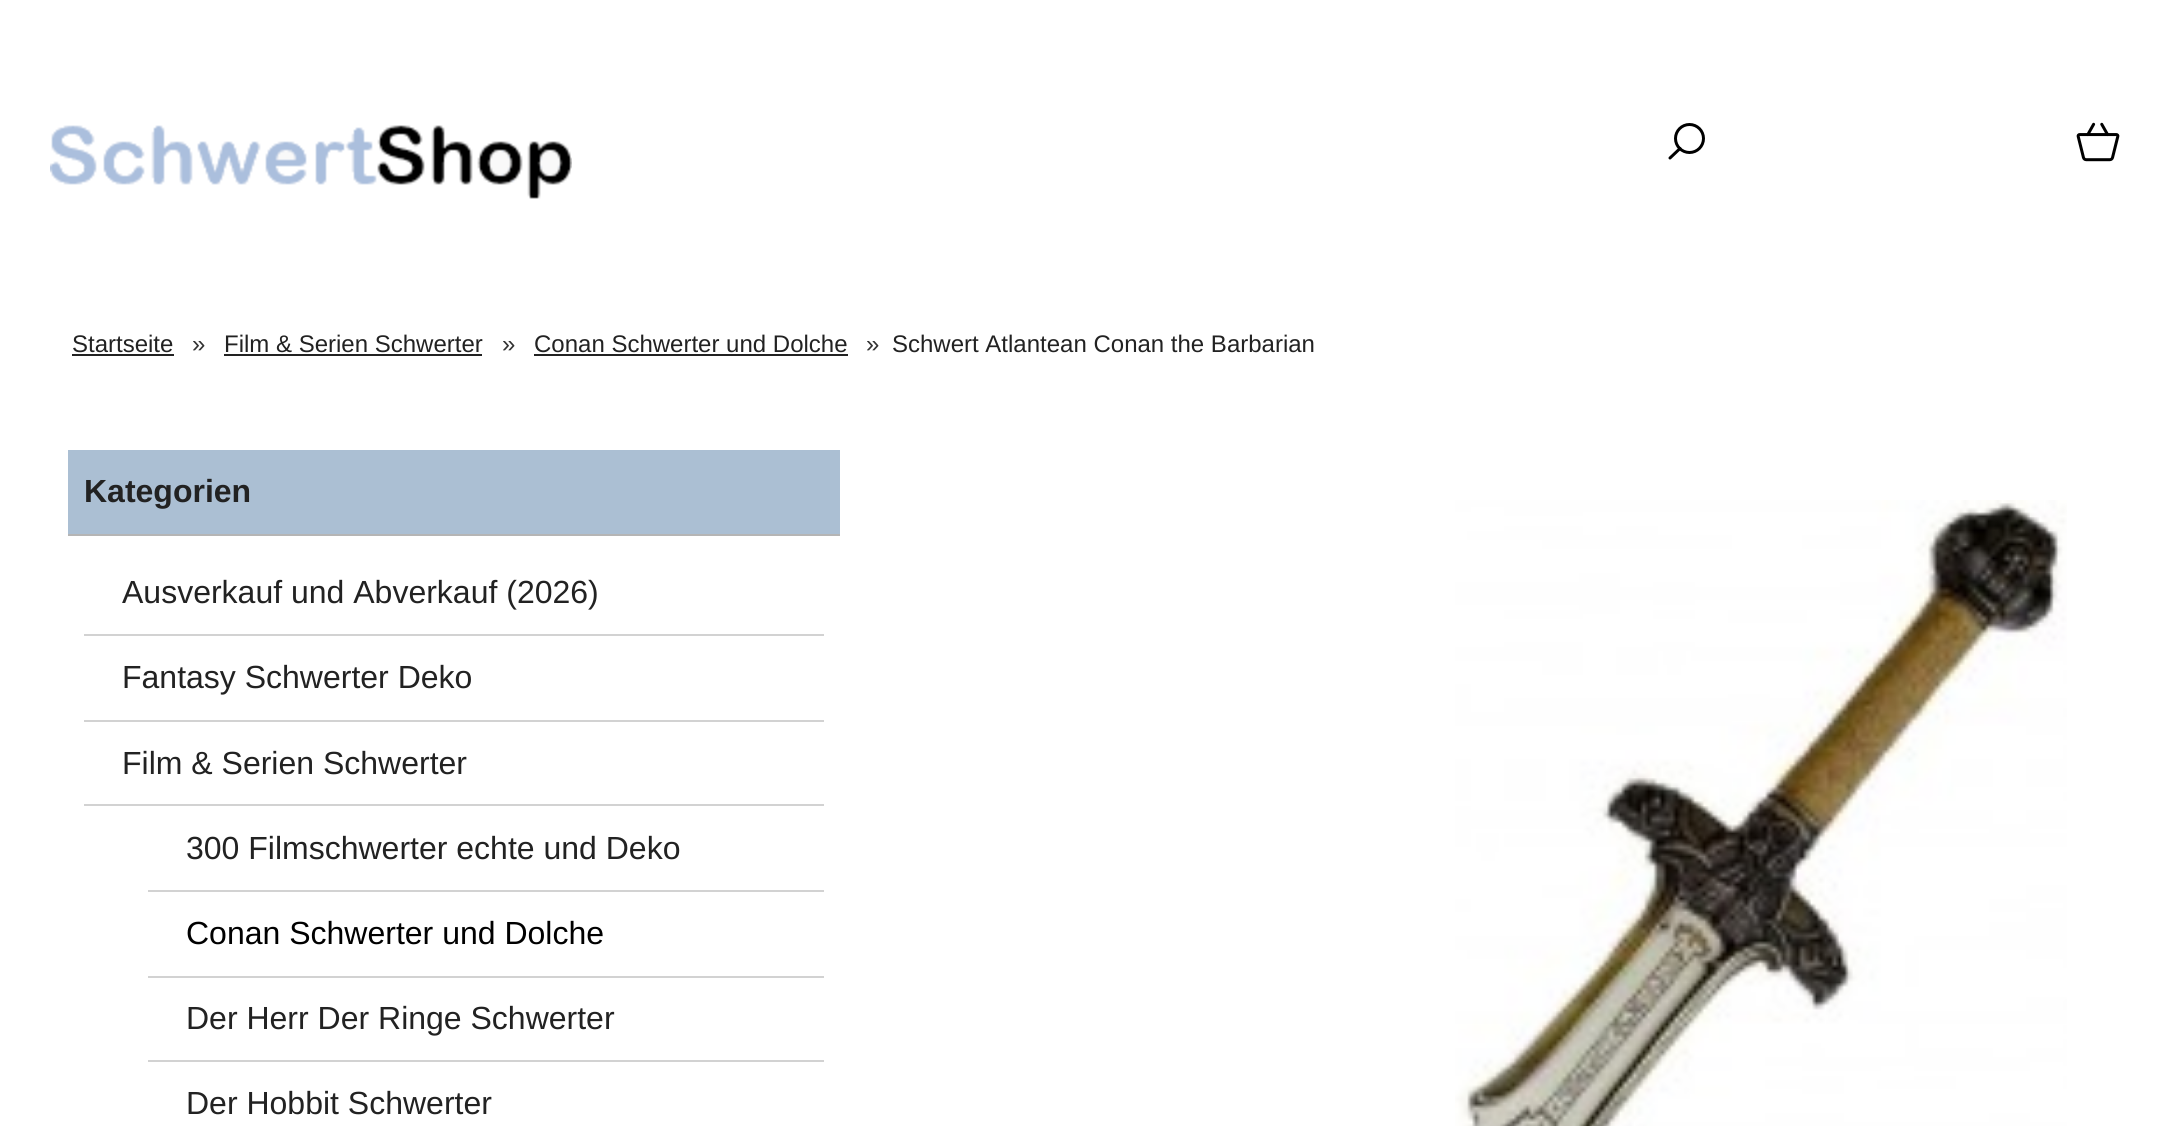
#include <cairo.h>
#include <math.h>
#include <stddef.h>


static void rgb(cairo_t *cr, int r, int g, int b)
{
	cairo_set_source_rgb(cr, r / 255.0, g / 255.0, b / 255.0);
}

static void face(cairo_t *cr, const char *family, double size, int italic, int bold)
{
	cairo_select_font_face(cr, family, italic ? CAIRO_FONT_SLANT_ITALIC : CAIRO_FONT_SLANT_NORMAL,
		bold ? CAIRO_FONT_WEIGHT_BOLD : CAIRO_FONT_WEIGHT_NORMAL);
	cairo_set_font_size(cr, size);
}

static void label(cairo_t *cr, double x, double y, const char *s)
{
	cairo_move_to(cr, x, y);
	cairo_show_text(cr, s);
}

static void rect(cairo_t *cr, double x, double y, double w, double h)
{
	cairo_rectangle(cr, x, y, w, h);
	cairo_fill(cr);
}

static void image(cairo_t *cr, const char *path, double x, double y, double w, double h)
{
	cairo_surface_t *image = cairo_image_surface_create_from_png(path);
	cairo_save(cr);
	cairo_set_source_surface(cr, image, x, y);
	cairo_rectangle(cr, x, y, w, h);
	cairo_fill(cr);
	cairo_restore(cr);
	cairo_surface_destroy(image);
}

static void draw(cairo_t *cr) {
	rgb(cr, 255, 255, 255);
	cairo_paint(cr);
	image(cr, "image0.png", 50, 125, 522, 74);
	cairo_arc(cr, 1689.5, 138.5, 14, 0, 2 * M_PI);
	rgb(cr, 0, 0, 0);
	cairo_set_line_width(cr, 3);
	cairo_stroke(cr);
	cairo_new_path(cr);
	cairo_move_to(cr, 1680, 148.5);
	cairo_line_to(cr, 1670, 158);
	cairo_set_line_cap(cr, CAIRO_LINE_CAP_ROUND);
	cairo_set_line_join(cr, CAIRO_LINE_JOIN_BEVEL);
	cairo_stroke(cr);
	image(cr, "image1.png", 2076, 122, 44, 40);
	face(cr, "Liberation Sans", 24, 0, 0);
	rgb(cr, 34, 34, 34);
	label(cr, 72, 352, "Startseite");
	rect(cr, 72, 354, 102, 2);
	rgb(cr, 51, 51, 51);
	label(cr, 192, 352, "»");
	rgb(cr, 34, 34, 34);
	label(cr, 224, 352, "Film & Serien Schwerter");
	rect(cr, 224, 354, 258, 2);
	rgb(cr, 51, 51, 51);
	label(cr, 502, 352, "»");
	rgb(cr, 34, 34, 34);
	label(cr, 534, 352, "Conan Schwerter und Dolche");
	rect(cr, 534, 354, 314, 2);
	rgb(cr, 51, 51, 51);
	label(cr, 866, 352, "»");
	rgb(cr, 34, 34, 34);
	label(cr, 892, 352, "Schwert Atlantean Conan the Barbarian");
	rgb(cr, 171, 191, 211);
	rect(cr, 68, 450, 772, 84);
	rgb(cr, 181, 181, 181);
	rect(cr, 68, 534, 772, 2);
	face(cr, "Liberation Sans", 32, 0, 1);
	rgb(cr, 34, 34, 34);
	label(cr, 84, 502, "Kategorien");
	rgb(cr, 210, 210, 210);
	rect(cr, 84, 634, 740, 2);
	face(cr, "Liberation Sans", 32, 0, 0);
	rgb(cr, 34, 34, 34);
	label(cr, 122, 603, "Ausverkauf und Abverkauf (2026)");
	rgb(cr, 210, 210, 210);
	rect(cr, 84, 720, 740, 2);
	rgb(cr, 34, 34, 34);
	label(cr, 122, 688, "Fantasy Schwerter Deko");
	rgb(cr, 210, 210, 210);
	rect(cr, 84, 804, 740, 2);
	rgb(cr, 34, 34, 34);
	label(cr, 122, 774, "Film & Serien Schwerter");
	rgb(cr, 210, 210, 210);
	rect(cr, 148, 890, 676, 2);
	rgb(cr, 34, 34, 34);
	label(cr, 186, 859, "300 Filmschwerter echte und Deko");
	rgb(cr, 210, 210, 210);
	rect(cr, 148, 976, 676, 2);
	rgb(cr, 0, 0, 0);
	label(cr, 186, 944, "Conan Schwerter und Dolche");
	rgb(cr, 210, 210, 210);
	rect(cr, 148, 1060, 676, 2);
	rgb(cr, 34, 34, 34);
	label(cr, 186, 1029, "Der Herr Der Ringe Schwerter");
	label(cr, 186, 1114, "Der Hobbit Schwerter");
	image(cr, "image2.png", 1455, 500, 612, 626);
}

int main(void) {
	cairo_surface_t *surface = cairo_image_surface_create(CAIRO_FORMAT_RGB24, 2179, 1126);
	cairo_t *cr = cairo_create(surface);
	cairo_font_options_t *options = cairo_font_options_create();
	cairo_font_options_set_hint_metrics(options, CAIRO_HINT_METRICS_OFF);
	cairo_font_options_set_hint_style(options, CAIRO_HINT_STYLE_NONE);
	cairo_set_font_options(cr, options);
	cairo_set_miter_limit(cr, 4);
	draw(cr);
	cairo_surface_write_to_png(surface, "render.png");
	cairo_font_options_destroy(options);
	cairo_destroy(cr);
	cairo_surface_destroy(surface);
	return 0;
}
